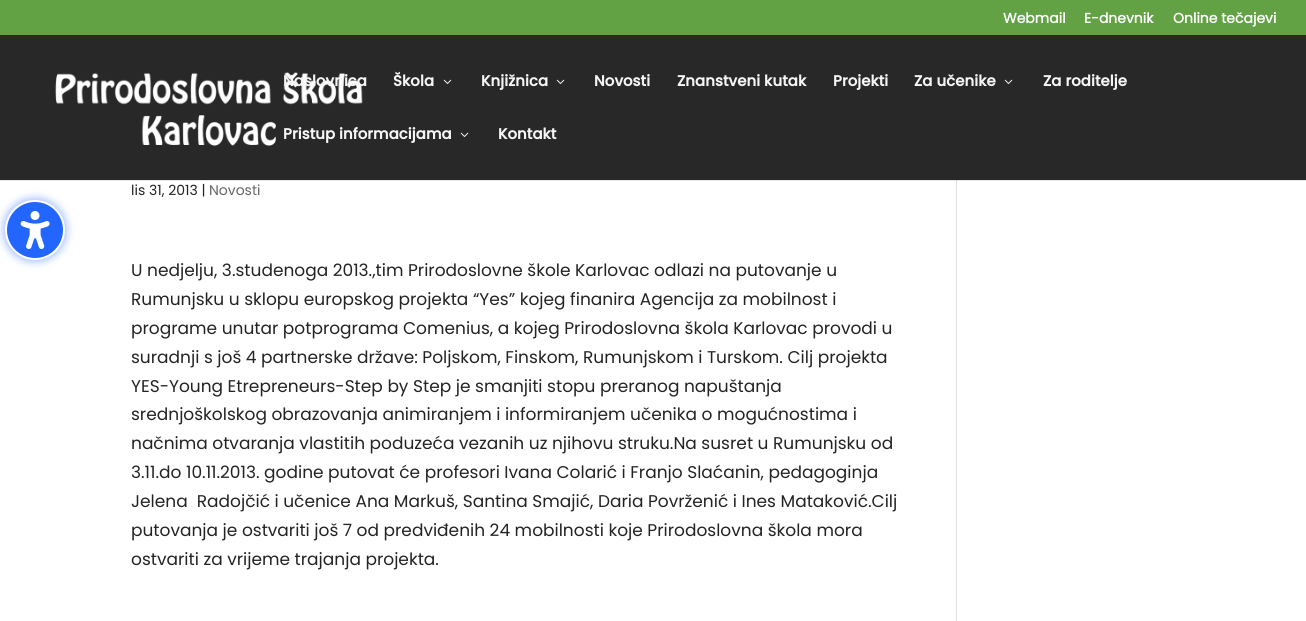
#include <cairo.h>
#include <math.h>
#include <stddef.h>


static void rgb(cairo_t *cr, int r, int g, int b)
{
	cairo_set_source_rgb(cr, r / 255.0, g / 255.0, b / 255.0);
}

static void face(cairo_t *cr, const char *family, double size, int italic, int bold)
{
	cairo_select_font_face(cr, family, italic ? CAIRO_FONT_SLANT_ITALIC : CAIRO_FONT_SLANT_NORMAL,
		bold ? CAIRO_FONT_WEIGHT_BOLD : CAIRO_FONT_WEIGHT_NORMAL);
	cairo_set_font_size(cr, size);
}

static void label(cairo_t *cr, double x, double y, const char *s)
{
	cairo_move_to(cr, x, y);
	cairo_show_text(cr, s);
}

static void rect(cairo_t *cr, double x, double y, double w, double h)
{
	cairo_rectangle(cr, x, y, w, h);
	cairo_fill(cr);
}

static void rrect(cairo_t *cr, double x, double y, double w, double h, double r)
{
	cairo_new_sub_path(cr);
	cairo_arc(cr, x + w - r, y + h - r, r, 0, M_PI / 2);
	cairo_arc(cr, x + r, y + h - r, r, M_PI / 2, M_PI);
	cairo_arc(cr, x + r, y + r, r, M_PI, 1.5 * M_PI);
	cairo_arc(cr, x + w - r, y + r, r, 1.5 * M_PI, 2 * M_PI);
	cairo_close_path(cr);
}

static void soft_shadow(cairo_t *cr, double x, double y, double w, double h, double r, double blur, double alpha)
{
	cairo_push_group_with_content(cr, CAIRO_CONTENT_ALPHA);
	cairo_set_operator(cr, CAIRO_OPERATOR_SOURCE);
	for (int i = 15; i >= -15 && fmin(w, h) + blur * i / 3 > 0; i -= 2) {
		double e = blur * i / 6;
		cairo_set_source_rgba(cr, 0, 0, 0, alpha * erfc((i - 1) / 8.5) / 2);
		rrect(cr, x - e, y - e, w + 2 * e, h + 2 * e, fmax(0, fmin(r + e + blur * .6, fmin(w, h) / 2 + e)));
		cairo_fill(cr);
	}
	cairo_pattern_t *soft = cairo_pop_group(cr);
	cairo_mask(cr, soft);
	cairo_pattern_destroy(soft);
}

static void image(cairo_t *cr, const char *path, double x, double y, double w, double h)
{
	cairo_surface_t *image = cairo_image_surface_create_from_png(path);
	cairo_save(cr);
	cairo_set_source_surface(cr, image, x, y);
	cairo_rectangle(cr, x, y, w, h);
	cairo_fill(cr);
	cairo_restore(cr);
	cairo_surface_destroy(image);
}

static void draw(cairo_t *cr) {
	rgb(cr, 255, 255, 255);
	cairo_paint(cr);
	rgb(cr, 230, 230, 230);
	rect(cr, 0, 180, 1306, 1);
	rgb(cr, 34, 102, 255);
	soft_shadow(cr, 3, 198, 64, 64, 32, 4, 0.4);
	rgb(cr, 34, 102, 255);
	cairo_arc(cr, 35, 230, 29, 0, 2 * M_PI);
	cairo_fill_preserve(cr);
	rgb(cr, 255, 255, 255);
	cairo_stroke(cr);
	image(cr, "image0.png", 20, 211, 30, 38);
	rgb(cr, 98, 162, 68);
	rect(cr, 0, 0, 1306, 35);
	face(cr, "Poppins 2", 14, 0, 1);
	rgb(cr, 255, 255, 255);
	label(cr, 1003, 23, "Webmail");
	label(cr, 1084, 23, "E-dnevnik");
	label(cr, 1173, 23, "Online tečajevi");
	rgb(cr, 40, 40, 40);
	rect(cr, 0, 35, 1306, 145);
	image(cr, "image1.png", 55, 72, 308, 74);
	face(cr, "Poppins", 15, 0, 1);
	rgb(cr, 245, 245, 245);
	label(cr, 283, 86, "Naslovnica");
	label(cr, 393, 86, "Škola");
	image(cr, "image2.png", 443, 79, 9, 5);
	label(cr, 481, 86, "Knjižnica");
	image(cr, "image2.png", 556, 79, 9, 5);
	label(cr, 594, 86, "Novosti");
	label(cr, 677, 86, "Znanstveni kutak");
	label(cr, 833, 86, "Projekti");
	label(cr, 914, 86, "Za učenike");
	image(cr, "image2.png", 1004, 79, 9, 5);
	label(cr, 1043, 86, "Za roditelje");
	label(cr, 283, 139, "Pristup informacijama");
	image(cr, "image2.png", 460, 132, 9, 5);
	label(cr, 498, 139, "Kontakt");
	face(cr, "Poppins", 14, 0, 0);
	rgb(cr, 35, 35, 35);
	label(cr, 131, 195, "lis 31, 2013 |");
	rgb(cr, 102, 102, 102);
	label(cr, 209, 195, "Novosti");
	face(cr, "Poppins", 17, 0, 0);
	rgb(cr, 35, 35, 35);
	label(cr, 131, 276, "U nedjelju, 3.studenoga 2013.,tim Prirodoslovne škole Karlovac odlazi na putovanje u");
	label(cr, 131, 305, "Rumunjsku u sklopu europskog projekta “Yes” kojeg finanira Agencija za mobilnost i");
	label(cr, 131, 334, "programe unutar potprograma Comenius, a kojeg Prirodoslovna škola Karlovac provodi u");
	label(cr, 131, 363, "suradnji s još 4 partnerske države: Poljskom, Finskom, Rumunjskom i Turskom. Cilj projekta");
	label(cr, 131, 392, "YES-Young Etrepreneurs-Step by Step je smanjiti stopu preranog napuštanja");
	label(cr, 131, 420, "srednjoškolskog obrazovanja animiranjem i informiranjem učenika o mogućnostima i");
	label(cr, 131, 449, "načnima otvaranja vlastitih poduzeća vezanih uz njihovu struku.Na susret u Rumunjsku od");
	label(cr, 131, 478, "3.11.do 10.11.2013. godine putovat će profesori Ivana Colarić i Franjo Slaćanin, pedagoginja");
	label(cr, 131, 507, "Jelena  Radojčić i učenice Ana Markuš, Santina Smajić, Daria Povrženić i Ines Mataković.Cilj");
	label(cr, 131, 536, "putovanja je ostvariti još 7 od predviđenih 24 mobilnosti koje Prirodoslovna škola mora");
	label(cr, 131, 565, "ostvariti za vrijeme trajanja projekta.");
	rgb(cr, 226, 226, 226);
	rect(cr, 956, 181, 1, 440);
	rgb(cr, 203, 203, 203);
	rect(cr, 956, 180, 1, 1);
}

int main(void) {
	cairo_surface_t *surface = cairo_image_surface_create(CAIRO_FORMAT_RGB24, 1306, 621);
	cairo_t *cr = cairo_create(surface);
	cairo_font_options_t *options = cairo_font_options_create();
	cairo_font_options_set_hint_metrics(options, CAIRO_HINT_METRICS_OFF);
	cairo_font_options_set_hint_style(options, CAIRO_HINT_STYLE_NONE);
	cairo_set_font_options(cr, options);
	cairo_set_miter_limit(cr, 4);
	draw(cr);
	cairo_surface_write_to_png(surface, "render.png");
	cairo_font_options_destroy(options);
	cairo_destroy(cr);
	cairo_surface_destroy(surface);
	return 0;
}
